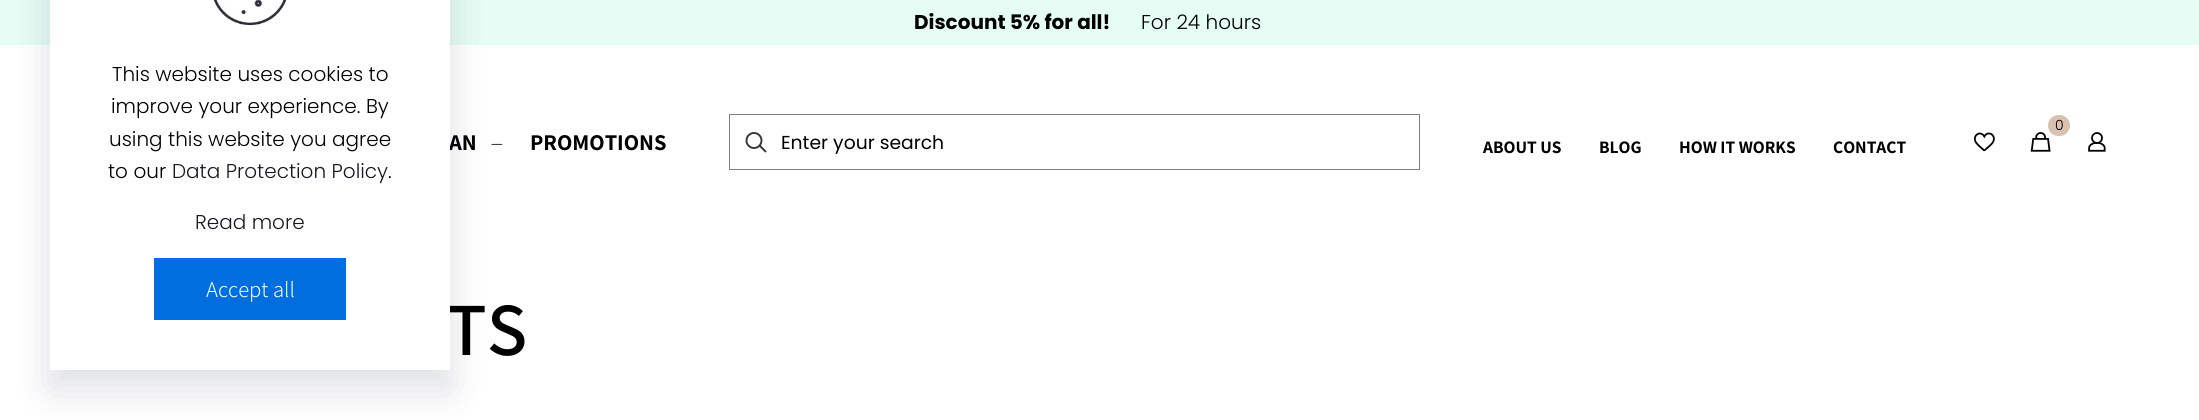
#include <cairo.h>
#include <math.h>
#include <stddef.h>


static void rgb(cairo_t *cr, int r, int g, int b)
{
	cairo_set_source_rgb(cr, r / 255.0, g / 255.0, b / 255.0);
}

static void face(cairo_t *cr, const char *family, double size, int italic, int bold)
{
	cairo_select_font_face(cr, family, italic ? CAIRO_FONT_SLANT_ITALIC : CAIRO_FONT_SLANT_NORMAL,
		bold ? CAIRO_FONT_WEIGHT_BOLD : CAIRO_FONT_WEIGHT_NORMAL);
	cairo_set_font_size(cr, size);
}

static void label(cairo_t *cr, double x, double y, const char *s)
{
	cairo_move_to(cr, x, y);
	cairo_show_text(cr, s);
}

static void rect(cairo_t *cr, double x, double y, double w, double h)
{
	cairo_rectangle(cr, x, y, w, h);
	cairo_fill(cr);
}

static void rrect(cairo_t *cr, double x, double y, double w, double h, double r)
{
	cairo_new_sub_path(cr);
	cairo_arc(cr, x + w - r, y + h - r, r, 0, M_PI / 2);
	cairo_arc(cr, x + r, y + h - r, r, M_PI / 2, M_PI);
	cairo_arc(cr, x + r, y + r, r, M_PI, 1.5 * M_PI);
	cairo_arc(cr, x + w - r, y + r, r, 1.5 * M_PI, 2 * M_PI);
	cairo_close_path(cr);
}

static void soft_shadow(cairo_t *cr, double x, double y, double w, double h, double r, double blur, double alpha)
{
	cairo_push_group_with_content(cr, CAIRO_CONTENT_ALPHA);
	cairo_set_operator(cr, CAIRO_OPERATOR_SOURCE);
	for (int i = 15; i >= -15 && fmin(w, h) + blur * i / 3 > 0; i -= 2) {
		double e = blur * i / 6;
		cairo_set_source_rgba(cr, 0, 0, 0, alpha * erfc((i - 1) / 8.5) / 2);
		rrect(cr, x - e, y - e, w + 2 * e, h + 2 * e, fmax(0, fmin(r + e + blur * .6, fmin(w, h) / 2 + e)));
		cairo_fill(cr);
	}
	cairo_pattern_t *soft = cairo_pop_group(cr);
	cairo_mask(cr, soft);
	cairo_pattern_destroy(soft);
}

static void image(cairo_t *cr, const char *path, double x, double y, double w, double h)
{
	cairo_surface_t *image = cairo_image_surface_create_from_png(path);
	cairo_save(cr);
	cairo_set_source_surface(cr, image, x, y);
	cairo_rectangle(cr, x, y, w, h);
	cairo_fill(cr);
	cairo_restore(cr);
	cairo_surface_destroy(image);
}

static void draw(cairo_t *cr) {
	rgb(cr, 255, 255, 255);
	cairo_paint(cr);
	rgb(cr, 229, 253, 245);
	rect(cr, 0, 0, 2199, 45);
	image(cr, "image1.png", 491, 143, 12, 2);
	rgb(cr, 1, 7, 39);
	soft_shadow(cr, 50, -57, 400, 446, 0, 19, 0.13);
	face(cr, "Assistant", 22.5, 0, 1);
	rgb(cr, 0, 0, 0);
	label(cr, 449, 150, "AN");
	face(cr, "Assistant SemiBold", 75, 0, 0);
	label(cr, 446, 355, "TS");
	rgb(cr, 255, 255, 255);
	rect(cr, 50, 0, 400, 370);
	image(cr, "image0.png", 213, 0, 74, 26);
	face(cr, "Poppins Light", 20, 0, 0);
	rgb(cr, 0, 0, 0);
	label(cr, 112, 81, "This website uses cookies to");
	label(cr, 111, 113, "improve your experience. By");
	label(cr, 109, 146, "using this website you agree");
	label(cr, 108, 178, "to our");
	rgb(cr, 22, 25, 34);
	label(cr, 172, 178, "Data Protection Policy");
	rgb(cr, 0, 0, 0);
	label(cr, 388, 178, ".");
	rgb(cr, 22, 25, 34);
	label(cr, 195, 229, "Read more");
	rgb(cr, 0, 110, 223);
	rect(cr, 154, 258, 192, 62);
	face(cr, "Assistant Light", 22.5, 0, 0);
	rgb(cr, 255, 255, 255);
	label(cr, 206, 297, "Accept all");
	face(cr, "Poppins", 20, 0, 1);
	rgb(cr, 0, 0, 0);
	label(cr, 914, 29, "Discount 5% for all!");
	face(cr, "Poppins Light", 20, 0, 0);
	label(cr, 1141, 29, "For 24 hours");
	face(cr, "Assistant", 22.5, 0, 1);
	label(cr, 530, 150, "PROMOTIONS");
	cairo_rectangle(cr, 729.5, 114.5, 690, 55);
	rgb(cr, 127, 127, 127);
	cairo_set_line_width(cr, 1);
	cairo_stroke(cr);
	cairo_arc(cr, 754, 140.5, 7.5, 0, 2 * M_PI);
	rgb(cr, 51, 51, 51);
	cairo_set_line_width(cr, 1.9);
	cairo_stroke(cr);
	cairo_new_path(cr);
	cairo_move_to(cr, 759.5, 145.5);
	cairo_line_to(cr, 766, 152);
	cairo_stroke(cr);
	face(cr, "Poppins", 18.75, 0, 0);
	rgb(cr, 0, 0, 0);
	label(cr, 781, 149, "Enter your search");
	image(cr, "image2.png", 2030, 132, 21, 20);
	rgb(cr, 216, 193, 174);
	rrect(cr, 2048, 115, 22, 21, 10.5);
	cairo_fill(cr);
	face(cr, "Poppins Light", 14, 0, 0);
	rgb(cr, 0, 0, 0);
	label(cr, 2055, 130, "0");
	face(cr, "Assistant", 17.5, 0, 1);
	label(cr, 1483, 153, "ABOUT US");
	label(cr, 1599, 153, "BLOG");
	label(cr, 1679, 153, "HOW IT WORKS");
	label(cr, 1833, 153, "CONTACT");
	image(cr, "image3.png", 1974, 132, 21, 20);
	image(cr, "image4.png", 2088, 132, 18, 20);
}

int main(void) {
	cairo_surface_t *surface = cairo_image_surface_create(CAIRO_FORMAT_RGB24, 2199, 420);
	cairo_t *cr = cairo_create(surface);
	cairo_font_options_t *options = cairo_font_options_create();
	cairo_font_options_set_hint_metrics(options, CAIRO_HINT_METRICS_OFF);
	cairo_font_options_set_hint_style(options, CAIRO_HINT_STYLE_NONE);
	cairo_set_font_options(cr, options);
	cairo_set_miter_limit(cr, 4);
	draw(cr);
	cairo_surface_write_to_png(surface, "render.png");
	cairo_font_options_destroy(options);
	cairo_destroy(cr);
	cairo_surface_destroy(surface);
	return 0;
}
